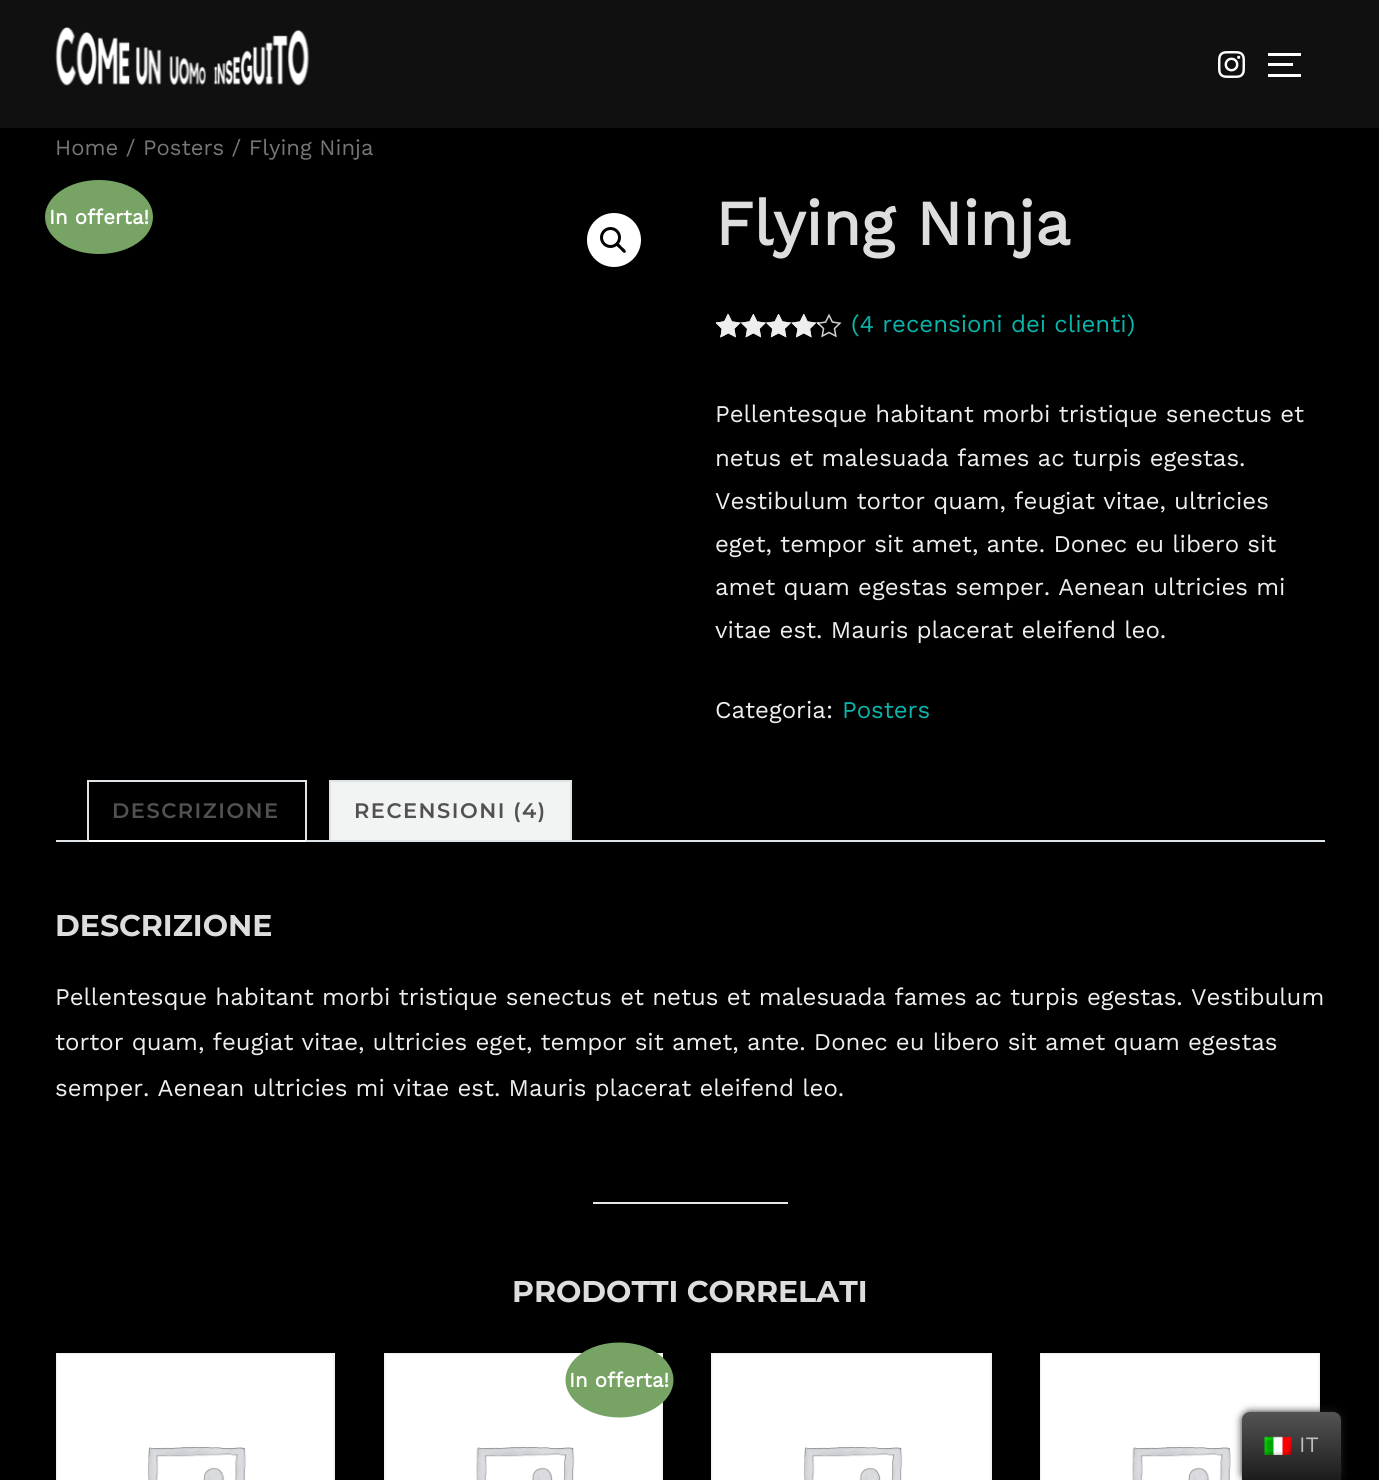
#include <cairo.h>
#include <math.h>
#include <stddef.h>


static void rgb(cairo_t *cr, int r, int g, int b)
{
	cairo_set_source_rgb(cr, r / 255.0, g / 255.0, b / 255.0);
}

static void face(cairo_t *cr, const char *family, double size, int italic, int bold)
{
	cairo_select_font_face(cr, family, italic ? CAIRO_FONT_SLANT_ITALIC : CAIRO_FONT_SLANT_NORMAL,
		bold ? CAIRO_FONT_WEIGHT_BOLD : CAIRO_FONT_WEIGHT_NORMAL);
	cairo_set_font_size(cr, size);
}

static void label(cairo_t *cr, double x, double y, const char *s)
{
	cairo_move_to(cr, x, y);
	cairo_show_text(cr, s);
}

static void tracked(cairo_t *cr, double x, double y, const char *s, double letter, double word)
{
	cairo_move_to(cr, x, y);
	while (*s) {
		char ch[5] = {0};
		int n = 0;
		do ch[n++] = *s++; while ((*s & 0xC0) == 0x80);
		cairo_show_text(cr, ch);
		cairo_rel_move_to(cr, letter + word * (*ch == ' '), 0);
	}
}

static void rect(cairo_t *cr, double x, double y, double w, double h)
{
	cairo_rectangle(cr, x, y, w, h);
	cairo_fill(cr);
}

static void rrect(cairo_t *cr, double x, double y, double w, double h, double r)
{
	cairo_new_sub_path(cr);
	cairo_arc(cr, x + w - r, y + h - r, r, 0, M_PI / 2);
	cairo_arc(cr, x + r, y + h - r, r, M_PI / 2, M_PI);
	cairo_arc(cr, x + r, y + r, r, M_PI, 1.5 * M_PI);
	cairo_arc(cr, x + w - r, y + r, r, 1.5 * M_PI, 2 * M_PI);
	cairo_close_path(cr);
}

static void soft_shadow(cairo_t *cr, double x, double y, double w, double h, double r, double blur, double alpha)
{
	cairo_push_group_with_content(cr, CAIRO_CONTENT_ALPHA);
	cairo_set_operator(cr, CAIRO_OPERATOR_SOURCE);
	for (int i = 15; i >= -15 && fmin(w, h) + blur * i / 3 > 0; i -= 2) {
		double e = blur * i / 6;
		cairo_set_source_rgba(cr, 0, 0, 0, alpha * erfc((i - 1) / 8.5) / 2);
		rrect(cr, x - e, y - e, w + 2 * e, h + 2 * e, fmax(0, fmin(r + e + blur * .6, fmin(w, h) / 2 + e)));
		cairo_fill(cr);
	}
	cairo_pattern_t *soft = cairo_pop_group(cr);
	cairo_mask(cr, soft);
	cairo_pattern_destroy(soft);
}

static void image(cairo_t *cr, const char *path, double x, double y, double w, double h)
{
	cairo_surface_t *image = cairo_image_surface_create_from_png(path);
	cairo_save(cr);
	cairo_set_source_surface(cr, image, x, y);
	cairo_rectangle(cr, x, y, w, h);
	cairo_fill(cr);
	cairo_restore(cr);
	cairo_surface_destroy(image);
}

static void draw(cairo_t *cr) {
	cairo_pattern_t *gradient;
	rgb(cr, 0, 0, 0);
	cairo_paint(cr);
	rgb(cr, 16, 16, 16);
	rect(cr, 0, 0, 1379, 128);
	image(cr, "image0.png", 55, 27, 255, 59);
	image(cr, "image1.png", 1218, 51, 27, 27);
	rgb(cr, 255, 255, 255);
	rect(cr, 1268, 53, 33, 3);
	rect(cr, 1268, 63, 25, 3);
	rect(cr, 1268, 74, 33, 3);
	face(cr, "Work Sans", 22.1, 0, 0);
	rgb(cr, 118, 118, 118);
	label(cr, 55, 155, "Home / Posters / Flying Ninja");
	rgb(cr, 119, 164, 100);
	cairo_new_path(cr);
	cairo_move_to(cr, 99, 180);
	cairo_curve_to(cr, 129, 180, 153, 196.5, 153, 217);
	cairo_curve_to(cr, 153, 237.5, 129, 254, 99, 254);
	cairo_curve_to(cr, 69, 254, 45, 237.5, 45, 217);
	cairo_curve_to(cr, 45, 196.5, 69, 180, 99, 180);
	cairo_close_path(cr);
	cairo_fill(cr);
	face(cr, "Work Sans", 20.5, 0, 1);
	rgb(cr, 255, 255, 255);
	label(cr, 49, 224, "In offerta!");
	cairo_new_path(cr);
	cairo_arc(cr, 614, 240, 27, 0, 2 * M_PI);
	cairo_fill(cr);
	cairo_arc(cr, 610.5, 237.5, 9, 0, 2 * M_PI);
	rgb(cr, 0, 0, 0);
	cairo_set_line_width(cr, 3);
	cairo_stroke(cr);
	cairo_new_path(cr);
	cairo_move_to(cr, 617, 244);
	cairo_curve_to(cr, 618.5, 242, 621, 246, 622, 247);
	cairo_curve_to(cr, 623, 248, 627, 250.5, 625.5, 252.5);
	cairo_curve_to(cr, 623.5, 254, 621, 250, 620, 249);
	cairo_curve_to(cr, 619, 248, 615, 245.5, 617, 244);
	cairo_close_path(cr);
	cairo_fill(cr);
	face(cr, "Work Sans", 63, 0, 1);
	rgb(cr, 221, 221, 221);
	label(cr, 715, 245, "Flying Ninja");
	image(cr, "image2.png", 716, 314, 126, 24);
	image(cr, "image3.png", 716, 314, 103, 24);
	image(cr, "image4.png", 716, 314, 12, 24);
	face(cr, "Work Sans", 24, 0, 0);
	rgb(cr, 11, 180, 170);
	label(cr, 851, 332, "(4 recensioni dei clienti)");
	rgb(cr, 238, 238, 238);
	label(cr, 715, 422, "Pellentesque habitant morbi tristique senectus et");
	label(cr, 715, 466, "netus et malesuada fames ac turpis egestas.");
	label(cr, 715, 509, "Vestibulum tortor quam, feugiat vitae, ultricies");
	label(cr, 715, 552, "eget, tempor sit amet, ante. Donec eu libero sit");
	label(cr, 715, 595, "amet quam egestas semper. Aenean ultricies mi");
	label(cr, 715, 638, "vitae est. Mauris placerat eleifend leo.");
	label(cr, 715, 718, "Categoria:");
	rgb(cr, 11, 180, 170);
	label(cr, 842, 718, "Posters");
	rgb(cr, 222, 227, 231);
	rect(cr, 87, 780, 219, 2);
	rgb(cr, 242, 243, 243);
	cairo_rectangle(cr, 330, 781, 241, 60);
	cairo_fill_preserve(cr);
	rgb(cr, 222, 227, 231);
	cairo_set_line_width(cr, 2);
	cairo_stroke(cr);
	rect(cr, 56, 840, 1269, 2);
	rect(cr, 305, 780, 2, 62);
	rgb(cr, 255, 255, 255);
	rect(cr, 87, 840, 219, 2);
	rgb(cr, 222, 227, 231);
	rect(cr, 87, 780, 2, 62);
	face(cr, "Montserrat SemiBold", 21, 0, 0);
	rgb(cr, 81, 81, 81);
	tracked(cr, 112, 818, "DESCRIZIONE", 1.5, 0);
	tracked(cr, 354, 818, "RECENSIONI (4)", 1.5, 0);
	face(cr, "Montserrat", 30, 0, 1);
	rgb(cr, 221, 221, 221);
	label(cr, 55, 936, "DESCRIZIONE");
	face(cr, "Work Sans", 24, 0, 0);
	rgb(cr, 238, 238, 238);
	label(cr, 55, 1005, "Pellentesque habitant morbi tristique senectus et netus et malesuada fames ac turpis egestas. Vestibulum");
	label(cr, 55, 1050, "tortor quam, feugiat vitae, ultricies eget, tempor sit amet, ante. Donec eu libero sit amet quam egestas");
	label(cr, 55, 1096, "semper. Aenean ultricies mi vitae est. Mauris placerat eleifend leo.");
	rgb(cr, 230, 230, 230);
	rect(cr, 593, 1202, 195, 2);
	face(cr, "Montserrat", 30, 0, 1);
	rgb(cr, 221, 221, 221);
	label(cr, 512, 1302, "PRODOTTI CORRELATI");
	cairo_rectangle(cr, 57, 1354, 277, 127);
	rgb(cr, 242, 242, 242);
	cairo_stroke(cr);
	image(cr, "image5.png", 57, 1354, 276, 126);
	cairo_rectangle(cr, 385, 1354, 277, 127);
	cairo_stroke(cr);
	image(cr, "image6.png", 385, 1354, 277, 126);
	rgb(cr, 119, 164, 100);
	cairo_new_path(cr);
	cairo_move_to(cr, 619.5, 1342.5);
	cairo_curve_to(cr, 649.5, 1342.5, 673.5, 1359.5, 673.5, 1380);
	cairo_curve_to(cr, 673.5, 1400.5, 649.5, 1417.5, 619.5, 1417.5);
	cairo_curve_to(cr, 589.5, 1417.5, 565.5, 1400.5, 565.5, 1380);
	cairo_curve_to(cr, 565.5, 1359.5, 589.5, 1342.5, 619.5, 1342.5);
	cairo_close_path(cr);
	cairo_fill(cr);
	face(cr, "Work Sans", 20.5, 0, 1);
	rgb(cr, 255, 255, 255);
	label(cr, 569, 1387, "In offerta!");
	cairo_rectangle(cr, 712, 1354, 279, 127);
	rgb(cr, 242, 242, 242);
	cairo_stroke(cr);
	image(cr, "image7.png", 712, 1354, 278, 126);
	cairo_rectangle(cr, 1041, 1354, 278, 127);
	cairo_stroke(cr);
	image(cr, "image8.png", 1041, 1354, 278, 126);
	rgb(cr, 33, 33, 33);
	soft_shadow(cr, 1242, 1412, 99, 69, 8, 4, 1);
	gradient = cairo_pattern_create_linear(1292, 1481, 1292, 1412);
	cairo_pattern_add_color_stop_rgba(gradient, 0, 0.106, 0.106, 0.106, 1);
	cairo_pattern_add_color_stop_rgba(gradient, 1, 0.329, 0.329, 0.329, 1);
	cairo_set_source(cr, gradient);
	cairo_pattern_destroy(gradient);
	cairo_new_path(cr);
	cairo_move_to(cr, 1250, 1412);
	cairo_line_to(cr, 1333, 1412);
	cairo_curve_to(cr, 1337.5, 1412, 1341, 1415.5, 1341, 1420);
	cairo_line_to(cr, 1341, 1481);
	cairo_line_to(cr, 1242, 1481);
	cairo_line_to(cr, 1242, 1420);
	cairo_curve_to(cr, 1242, 1415.5, 1245.5, 1412, 1250, 1412);
	cairo_close_path(cr);
	cairo_fill(cr);
	image(cr, "image9.png", 1264, 1436, 28, 19);
	face(cr, "Work Sans", 22, 0, 0);
	rgb(cr, 189, 189, 189);
	label(cr, 1299, 1452, "IT");
}

int main(void) {
	cairo_surface_t *surface = cairo_image_surface_create(CAIRO_FORMAT_RGB24, 1379, 1480);
	cairo_t *cr = cairo_create(surface);
	cairo_font_options_t *options = cairo_font_options_create();
	cairo_font_options_set_hint_metrics(options, CAIRO_HINT_METRICS_OFF);
	cairo_font_options_set_hint_style(options, CAIRO_HINT_STYLE_NONE);
	cairo_set_font_options(cr, options);
	cairo_set_miter_limit(cr, 4);
	draw(cr);
	cairo_surface_write_to_png(surface, "render.png");
	cairo_font_options_destroy(options);
	cairo_destroy(cr);
	cairo_surface_destroy(surface);
	return 0;
}
